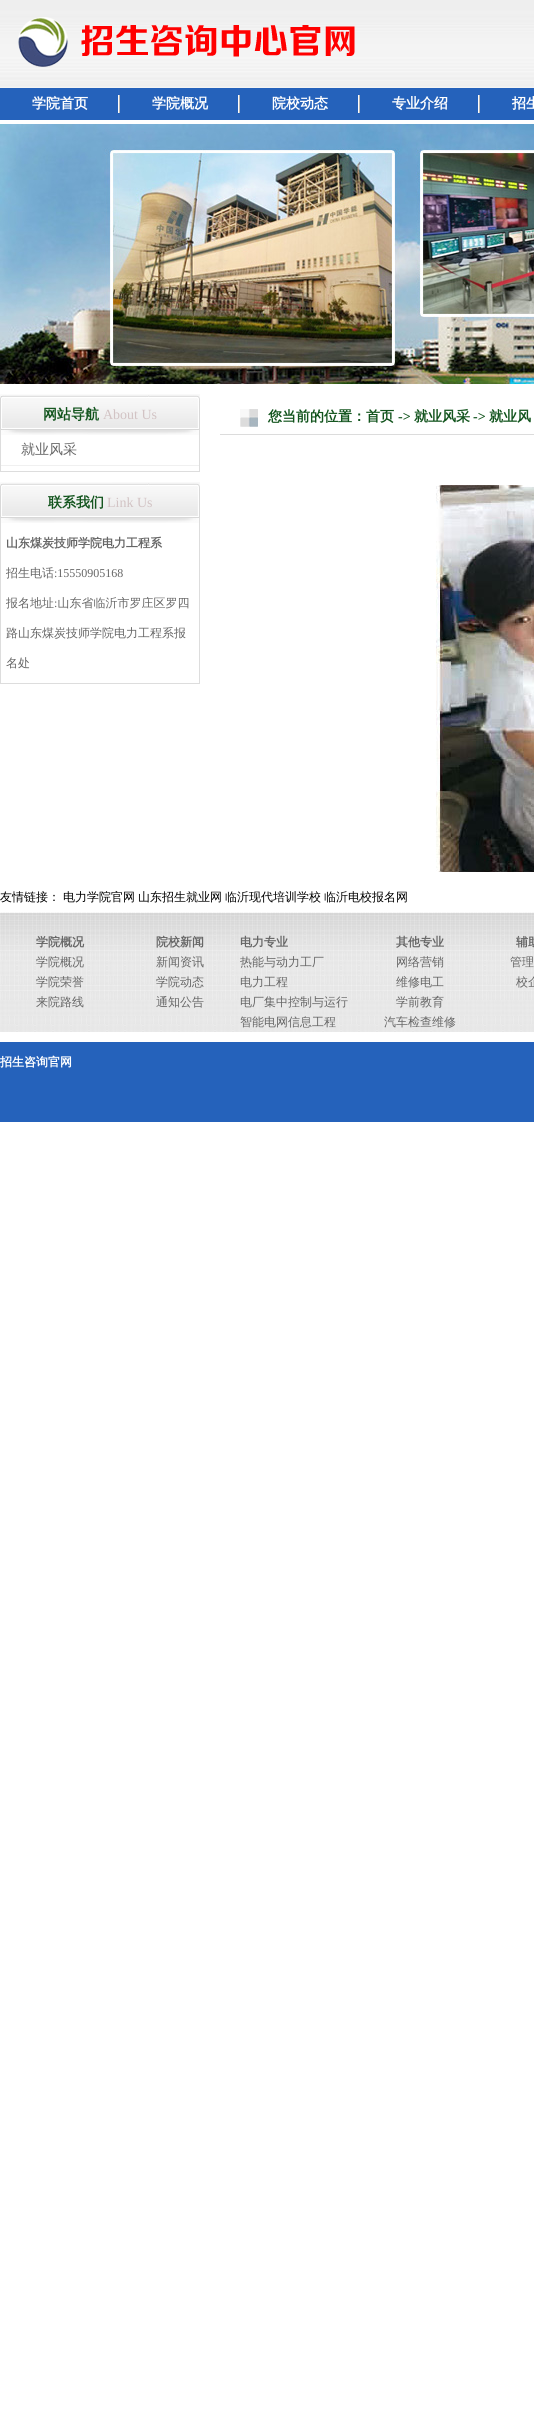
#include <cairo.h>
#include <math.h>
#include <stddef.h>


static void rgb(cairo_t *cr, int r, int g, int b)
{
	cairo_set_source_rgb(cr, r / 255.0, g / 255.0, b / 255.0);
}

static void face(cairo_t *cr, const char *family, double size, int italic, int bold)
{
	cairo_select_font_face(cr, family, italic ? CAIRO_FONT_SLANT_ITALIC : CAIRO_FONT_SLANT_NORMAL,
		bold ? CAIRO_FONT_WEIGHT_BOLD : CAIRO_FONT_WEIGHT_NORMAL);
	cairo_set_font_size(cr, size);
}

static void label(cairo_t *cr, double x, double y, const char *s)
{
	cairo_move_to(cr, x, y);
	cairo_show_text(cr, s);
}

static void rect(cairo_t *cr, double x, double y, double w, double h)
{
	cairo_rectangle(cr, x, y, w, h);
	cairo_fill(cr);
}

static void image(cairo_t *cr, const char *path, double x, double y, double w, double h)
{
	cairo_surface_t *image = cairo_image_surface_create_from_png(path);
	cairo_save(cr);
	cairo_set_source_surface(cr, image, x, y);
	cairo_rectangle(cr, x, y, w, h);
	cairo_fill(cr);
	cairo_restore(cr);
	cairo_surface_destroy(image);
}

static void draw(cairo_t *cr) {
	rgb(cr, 255, 255, 255);
	cairo_paint(cr);
	image(cr, "image0.png", 0, 0, 534, 120);
	image(cr, "image1.png", 18, 17, 337, 50);
	image(cr, "image2.png", 118, 95, 2, 18);
	face(cr, "WenQuanYi Zen Hei", 14, 0, 1);
	rgb(cr, 255, 255, 255);
	label(cr, 32, 108, "学院首页");
	image(cr, "image2.png", 238, 95, 2, 18);
	label(cr, 152, 108, "学院概况");
	image(cr, "image2.png", 358, 95, 2, 18);
	label(cr, 272, 108, "院校动态");
	image(cr, "image2.png", 478, 95, 2, 18);
	label(cr, 392, 108, "专业介绍");
	label(cr, 512, 108, "招生");
	image(cr, "image3.png", 0, 124, 534, 260);
	image(cr, "image4.png", 0, 394, 200, 41);
	rgb(cr, 18, 84, 29);
	label(cr, 43, 419, "网站导航");
	face(cr, "Liberation Serif", 14, 0, 0);
	rgb(cr, 210, 195, 196);
	label(cr, 103, 419, "About Us");
	rgb(cr, 221, 221, 221);
	rect(cr, 199, 435, 1, 37);
	rect(cr, 0, 471, 200, 1);
	rect(cr, 0, 435, 1, 37);
	rgb(cr, 240, 240, 240);
	rect(cr, 1, 465, 198, 1);
	face(cr, "WenQuanYi Zen Hei Medium", 14, 0, 0);
	rgb(cr, 102, 102, 102);
	label(cr, 21, 454, "就业风采");
	image(cr, "image4.png", 0, 482, 200, 41);
	face(cr, "WenQuanYi Zen Hei", 14, 0, 1);
	rgb(cr, 18, 84, 29);
	label(cr, 48, 507, "联系我们");
	face(cr, "Liberation Serif", 14, 0, 0);
	rgb(cr, 210, 195, 196);
	label(cr, 107, 507, "Link Us");
	rgb(cr, 221, 221, 221);
	rect(cr, 199, 523, 1, 161);
	rect(cr, 0, 683, 200, 1);
	rect(cr, 0, 523, 1, 161);
	face(cr, "WenQuanYi Zen Hei", 12, 0, 1);
	rgb(cr, 102, 102, 102);
	label(cr, 6, 547, "山东煤炭技师学院电力工程系");
	face(cr, "WenQuanYi Zen Hei Medium", 12, 0, 0);
	label(cr, 6, 577, "招生电话");
	face(cr, "Liberation Serif", 12, 0, 0);
	label(cr, 54, 577, ":15550905168");
	face(cr, "WenQuanYi Zen Hei Medium", 12, 0, 0);
	label(cr, 6, 607, "报名地址 山东省临沂市罗庄区罗四");
	face(cr, "Liberation Serif", 12, 0, 0);
	label(cr, 54, 607, ":");
	face(cr, "WenQuanYi Zen Hei Medium", 12, 0, 0);
	label(cr, 6, 637, "路山东煤炭技师学院电力工程系报");
	label(cr, 6, 667, "名处");
	rgb(cr, 220, 220, 220);
	rect(cr, 220, 434, 314, 1);
	image(cr, "image5.png", 240, 409, 18, 18);
	face(cr, "WenQuanYi Zen Hei", 14, 0, 1);
	rgb(cr, 18, 84, 29);
	label(cr, 268, 421, "您当前的位置：首页");
	face(cr, "Liberation Serif", 14, 0, 1);
	label(cr, 398, 421, "->");
	face(cr, "WenQuanYi Zen Hei", 14, 0, 1);
	label(cr, 414, 421, "就业风采");
	face(cr, "Liberation Serif", 14, 0, 1);
	label(cr, 473, 421, "->");
	face(cr, "WenQuanYi Zen Hei", 14, 0, 1);
	label(cr, 489, 421, "就业风");
	image(cr, "image6.png", 436, 485, 98, 387);
	face(cr, "WenQuanYi Zen Hei Medium", 12, 0, 0);
	rgb(cr, 0, 0, 0);
	label(cr, 0, 901, "友情链接：");
	label(cr, 63, 901, "电力学院官网");
	label(cr, 138, 901, "山东招生就业网");
	label(cr, 225, 901, "临沂现代培训学校");
	label(cr, 324, 901, "临沂电校报名网");
	image(cr, "image7.png", 0, 912, 534, 120);
	face(cr, "WenQuanYi Zen Hei", 12, 0, 1);
	rgb(cr, 102, 102, 102);
	label(cr, 36, 946, "学院概况");
	face(cr, "WenQuanYi Zen Hei Medium", 12, 0, 0);
	label(cr, 36, 966, "学院概况");
	label(cr, 36, 986, "学院荣誉");
	label(cr, 36, 1006, "来院路线");
	face(cr, "WenQuanYi Zen Hei", 12, 0, 1);
	label(cr, 156, 946, "院校新闻");
	face(cr, "WenQuanYi Zen Hei Medium", 12, 0, 0);
	label(cr, 156, 966, "新闻资讯");
	label(cr, 156, 986, "学院动态");
	label(cr, 156, 1006, "通知公告");
	face(cr, "WenQuanYi Zen Hei", 12, 0, 1);
	label(cr, 240, 946, "电力专业");
	face(cr, "WenQuanYi Zen Hei Medium", 12, 0, 0);
	label(cr, 240, 966, "热能与动力工厂");
	label(cr, 240, 986, "电力工程");
	label(cr, 240, 1006, "电厂集中控制与运行");
	label(cr, 240, 1026, "智能电网信息工程");
	face(cr, "WenQuanYi Zen Hei", 12, 0, 1);
	label(cr, 396, 946, "其他专业");
	face(cr, "WenQuanYi Zen Hei Medium", 12, 0, 0);
	label(cr, 396, 966, "网络营销");
	label(cr, 396, 986, "维修电工");
	label(cr, 396, 1006, "学前教育");
	label(cr, 384, 1026, "汽车检查维修");
	face(cr, "WenQuanYi Zen Hei", 12, 0, 1);
	label(cr, 516, 946, "辅助");
	face(cr, "WenQuanYi Zen Hei Medium", 12, 0, 0);
	label(cr, 510, 966, "管理");
	label(cr, 516, 986, "校企");
	rgb(cr, 37, 98, 187);
	rect(cr, 0, 1042, 534, 80);
	face(cr, "WenQuanYi Zen Hei", 12, 0, 1);
	rgb(cr, 255, 255, 255);
	label(cr, 0, 1066, "招生咨询官网");
}

int main(void) {
	cairo_surface_t *surface = cairo_image_surface_create(CAIRO_FORMAT_RGB24, 534, 2417);
	cairo_t *cr = cairo_create(surface);
	cairo_font_options_t *options = cairo_font_options_create();
	cairo_font_options_set_hint_metrics(options, CAIRO_HINT_METRICS_OFF);
	cairo_font_options_set_hint_style(options, CAIRO_HINT_STYLE_NONE);
	cairo_set_font_options(cr, options);
	cairo_set_miter_limit(cr, 4);
	draw(cr);
	cairo_surface_write_to_png(surface, "render.png");
	cairo_font_options_destroy(options);
	cairo_destroy(cr);
	cairo_surface_destroy(surface);
	return 0;
}
